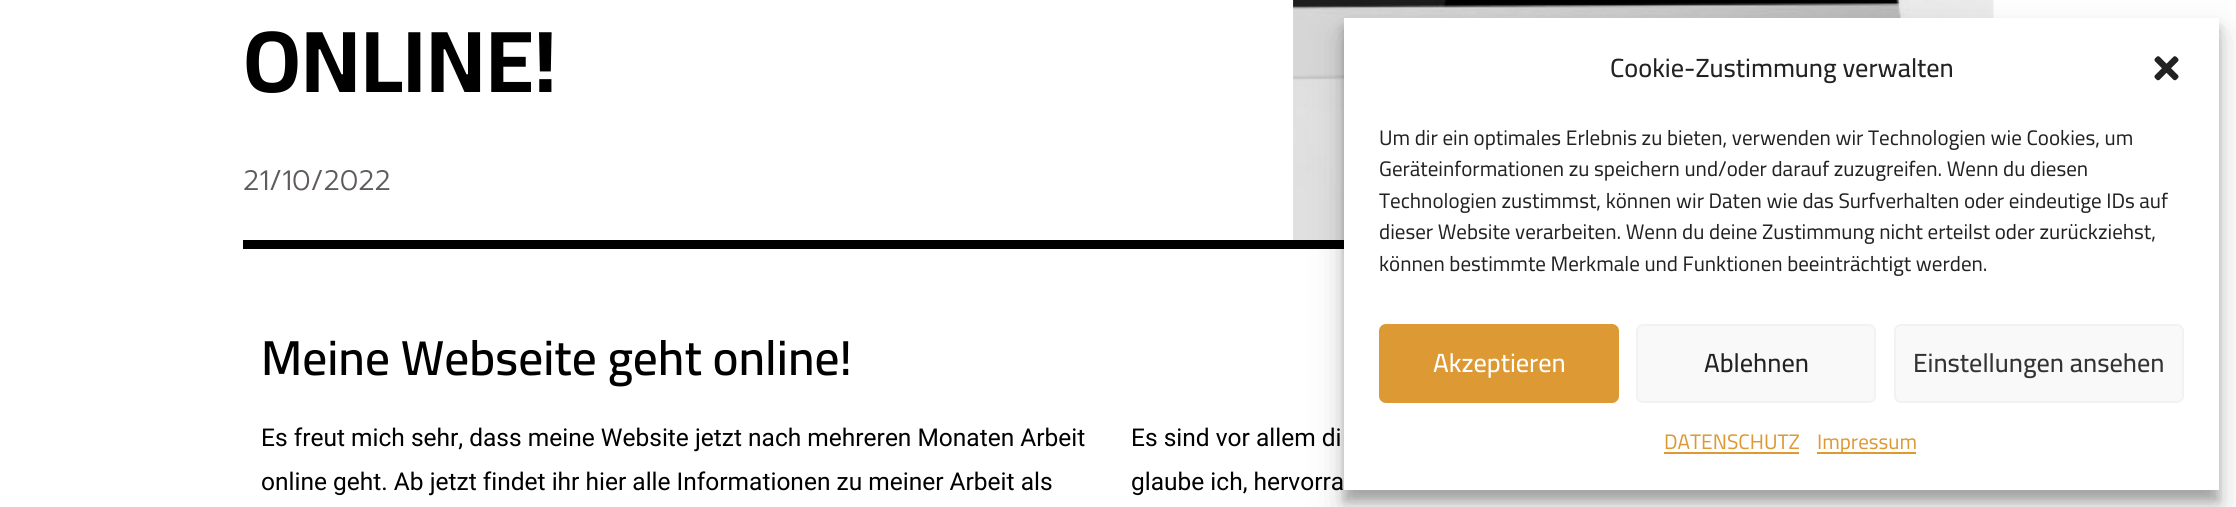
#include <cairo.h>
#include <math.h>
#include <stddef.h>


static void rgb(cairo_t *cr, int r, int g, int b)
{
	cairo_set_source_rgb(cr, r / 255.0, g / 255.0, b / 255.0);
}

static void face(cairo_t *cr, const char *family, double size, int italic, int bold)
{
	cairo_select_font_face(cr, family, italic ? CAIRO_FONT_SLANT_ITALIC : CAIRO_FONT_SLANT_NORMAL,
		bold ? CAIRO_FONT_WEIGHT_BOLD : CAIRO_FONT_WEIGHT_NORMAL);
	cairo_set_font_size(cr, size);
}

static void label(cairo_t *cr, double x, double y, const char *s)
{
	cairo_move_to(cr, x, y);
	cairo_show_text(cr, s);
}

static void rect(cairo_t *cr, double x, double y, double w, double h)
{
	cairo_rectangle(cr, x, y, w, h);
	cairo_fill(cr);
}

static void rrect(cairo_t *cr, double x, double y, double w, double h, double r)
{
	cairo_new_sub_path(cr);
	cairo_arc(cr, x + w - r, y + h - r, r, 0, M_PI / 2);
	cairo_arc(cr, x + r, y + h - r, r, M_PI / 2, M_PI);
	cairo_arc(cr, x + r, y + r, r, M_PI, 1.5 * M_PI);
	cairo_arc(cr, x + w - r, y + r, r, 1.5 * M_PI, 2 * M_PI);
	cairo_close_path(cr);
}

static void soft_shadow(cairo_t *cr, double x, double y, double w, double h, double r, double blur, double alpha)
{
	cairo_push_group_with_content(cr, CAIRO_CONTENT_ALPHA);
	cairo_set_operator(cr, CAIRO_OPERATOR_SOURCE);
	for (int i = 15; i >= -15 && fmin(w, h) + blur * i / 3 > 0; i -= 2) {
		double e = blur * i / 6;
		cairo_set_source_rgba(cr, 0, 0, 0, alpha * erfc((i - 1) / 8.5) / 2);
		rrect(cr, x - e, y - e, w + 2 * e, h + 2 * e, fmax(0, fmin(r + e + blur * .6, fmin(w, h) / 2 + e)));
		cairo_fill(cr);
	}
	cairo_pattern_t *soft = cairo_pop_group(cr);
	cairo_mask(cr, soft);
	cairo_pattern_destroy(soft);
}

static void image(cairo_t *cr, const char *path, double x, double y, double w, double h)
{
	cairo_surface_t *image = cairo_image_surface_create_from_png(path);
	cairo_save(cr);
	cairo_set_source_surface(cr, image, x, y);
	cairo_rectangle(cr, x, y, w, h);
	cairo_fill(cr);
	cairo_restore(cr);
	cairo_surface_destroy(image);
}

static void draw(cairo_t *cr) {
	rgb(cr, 255, 255, 255);
	cairo_paint(cr);
	face(cr, "Cairo", 87.5, 0, 1);
	rgb(cr, 0, 0, 0);
	label(cr, 243, 92, "ONLINE!");
	face(cr, "Prompt Light", 28, 0, 0);
	rgb(cr, 95, 91, 91);
	label(cr, 243, 190, "21/10/2022");
	image(cr, "image0.png", 1293, 0, 701, 240);
	image(cr, "image1.png", 1293, 0, 701, 240);
	rgb(cr, 0, 0, 0);
	rect(cr, 243, 240, 1101, 9);
	face(cr, "Cairo SemiBold", 49, 0, 0);
	label(cr, 261, 375, "Meine Webseite geht online!");
	face(cr, "Roboto", 24.5, 0, 0);
	label(cr, 261, 446, "Es freut mich sehr, dass meine Website jetzt nach mehreren Monaten Arbeit");
	label(cr, 261, 490, "online geht. Ab jetzt findet ihr hier alle Informationen zu meiner Arbeit als");
	label(cr, 1131, 446, "Es sind vor allem di");
	label(cr, 1131, 490, "glaube ich, hervorra");
	rgb(cr, 0, 0, 0);
	soft_shadow(cr, 1344, 28, 875, 473, 0, 5, 0.23);
	soft_shadow(cr, 1344, 35, 875, 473, 0, 17.5, 0.19);
	rgb(cr, 255, 255, 255);
	rect(cr, 1344, 18, 875, 472);
	face(cr, "Cairo Medium", 26.25, 0, 0);
	rgb(cr, 34, 34, 34);
	label(cr, 1610, 77, "Cookie-Zustimmung verwalten");
	image(cr, "image2.png", 2154, 56, 25, 25);
	face(cr, "Cairo", 21, 0, 0);
	label(cr, 1379, 145, "Um dir ein optimales Erlebnis zu bieten, verwenden wir Technologien wie Cookies, um");
	label(cr, 1379, 176, "Geräteinformationen zu speichern und/oder darauf zuzugreifen. Wenn du diesen");
	label(cr, 1379, 208, "Technologien zustimmst, können wir Daten wie das Surfverhalten oder eindeutige IDs auf");
	label(cr, 1379, 239, "dieser Website verarbeiten. Wenn du deine Zustimmung nicht erteilst oder zurückziehst,");
	label(cr, 1379, 271, "können bestimmte Merkmale und Funktionen beeinträchtigt werden.");
	rgb(cr, 221, 153, 51);
	rrect(cr, 1380, 325, 238, 77, 6);
	cairo_fill_preserve(cr);
	cairo_stroke(cr);
	face(cr, "Cairo Medium", 26.25, 0, 0);
	rgb(cr, 255, 255, 255);
	label(cr, 1433, 372, "Akzeptieren");
	rgb(cr, 249, 249, 249);
	rrect(cr, 1637, 325, 238, 77, 6);
	cairo_fill_preserve(cr);
	rgb(cr, 242, 242, 242);
	cairo_stroke(cr);
	rgb(cr, 34, 34, 34);
	label(cr, 1704, 372, "Ablehnen");
	rgb(cr, 249, 249, 249);
	rrect(cr, 1895, 325, 288, 77, 6);
	cairo_fill_preserve(cr);
	rgb(cr, 242, 242, 242);
	cairo_stroke(cr);
	rgb(cr, 51, 51, 51);
	label(cr, 1913, 372, "Einstellungen ansehen");
	face(cr, "Cairo", 21, 0, 0);
	rgb(cr, 221, 153, 51);
	label(cr, 1664, 449, "DATENSCHUTZ");
	rect(cr, 1664, 452, 135, 2);
	rect(cr, 1817, 452, 99, 2);
	label(cr, 1817, 449, "Impressum");
}

int main(void) {
	cairo_surface_t *surface = cairo_image_surface_create(CAIRO_FORMAT_RGB24, 2236, 507);
	cairo_t *cr = cairo_create(surface);
	cairo_font_options_t *options = cairo_font_options_create();
	cairo_font_options_set_hint_metrics(options, CAIRO_HINT_METRICS_OFF);
	cairo_font_options_set_hint_style(options, CAIRO_HINT_STYLE_NONE);
	cairo_set_font_options(cr, options);
	cairo_set_miter_limit(cr, 4);
	draw(cr);
	cairo_surface_write_to_png(surface, "render.png");
	cairo_font_options_destroy(options);
	cairo_destroy(cr);
	cairo_surface_destroy(surface);
	return 0;
}
